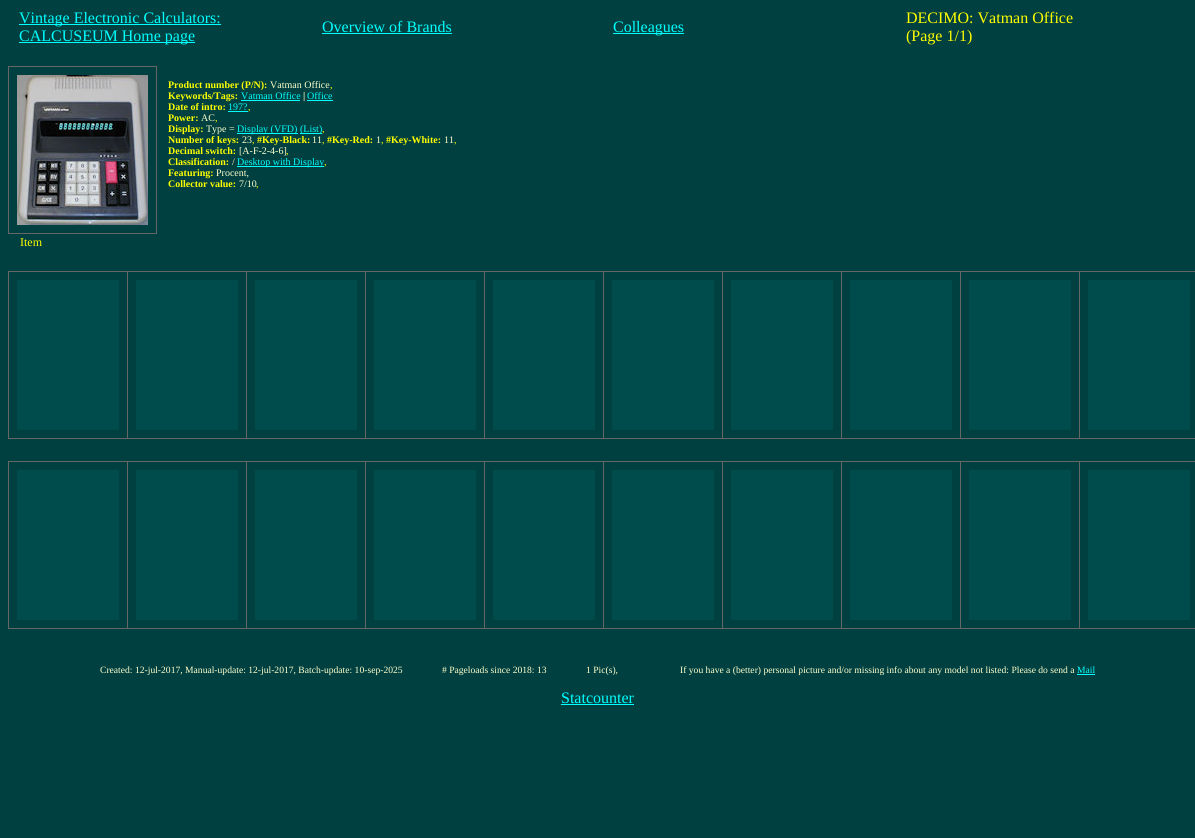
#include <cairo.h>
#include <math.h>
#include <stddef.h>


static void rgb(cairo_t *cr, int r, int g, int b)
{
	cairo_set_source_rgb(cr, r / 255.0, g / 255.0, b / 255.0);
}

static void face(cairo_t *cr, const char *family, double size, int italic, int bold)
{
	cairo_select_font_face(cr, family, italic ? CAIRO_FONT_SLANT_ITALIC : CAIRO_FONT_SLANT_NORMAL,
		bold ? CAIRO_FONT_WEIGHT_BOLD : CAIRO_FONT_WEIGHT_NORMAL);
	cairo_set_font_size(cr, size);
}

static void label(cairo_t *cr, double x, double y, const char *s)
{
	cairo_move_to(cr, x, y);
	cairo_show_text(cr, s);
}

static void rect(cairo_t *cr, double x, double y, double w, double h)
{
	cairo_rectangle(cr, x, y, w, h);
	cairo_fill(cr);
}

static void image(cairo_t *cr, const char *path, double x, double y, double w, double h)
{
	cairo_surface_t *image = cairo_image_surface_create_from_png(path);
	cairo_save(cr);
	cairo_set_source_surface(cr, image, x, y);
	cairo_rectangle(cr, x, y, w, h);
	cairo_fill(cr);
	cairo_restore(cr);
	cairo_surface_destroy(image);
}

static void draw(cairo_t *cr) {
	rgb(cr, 0, 64, 64);
	cairo_paint(cr);
	rgb(cr, 0, 255, 255);
	rect(cr, 19, 24, 202, 1);
	face(cr, "Liberation Serif", 16, 0, 0);
	label(cr, 19, 23, "Vintage Electronic Calculators:");
	rect(cr, 19, 42, 176, 1);
	label(cr, 19, 41, "CALCUSEUM Home page");
	label(cr, 322, 32, "Overview of Brands");
	rect(cr, 322, 33, 130, 1);
	rect(cr, 613, 33, 71, 1);
	label(cr, 613, 32, "Colleagues");
	rgb(cr, 255, 255, 0);
	label(cr, 906, 23, "DECIMO: Vatman Office");
	label(cr, 906, 41, "(Page 1/1)");
	rgb(cr, 102, 102, 102);
	rect(cr, 8, 66, 149, 1);
	rect(cr, 156, 66, 1, 168);
	rect(cr, 8, 233, 149, 1);
	rect(cr, 8, 66, 1, 168);
	image(cr, "image0.png", 17, 75, 131, 150);
	face(cr, "Liberation Serif", 10, 0, 1);
	rgb(cr, 255, 255, 0);
	label(cr, 168, 88, "Product number (P/N):");
	face(cr, "Liberation Serif", 10, 0, 0);
	rgb(cr, 255, 255, 204);
	label(cr, 270, 88, "Vatman Office");
	rgb(cr, 255, 255, 0);
	label(cr, 330, 88, ",");
	face(cr, "Liberation Serif", 10, 0, 1);
	label(cr, 168, 99, "Keywords/Tags:");
	rgb(cr, 0, 255, 255);
	rect(cr, 241, 100, 59, 1);
	face(cr, "Liberation Serif", 10, 0, 0);
	label(cr, 241, 99, "Vatman Office");
	face(cr, "Liberation Serif", 10, 0, 1);
	rgb(cr, 255, 255, 204);
	label(cr, 303, 99, "|");
	rgb(cr, 0, 255, 255);
	rect(cr, 307, 100, 26, 1);
	face(cr, "Liberation Serif", 10, 0, 0);
	label(cr, 307, 99, "Office");
	face(cr, "Liberation Serif", 10, 0, 1);
	rgb(cr, 255, 255, 0);
	label(cr, 168, 110, "Date of intro:");
	face(cr, "Liberation Serif", 10, 0, 0);
	rgb(cr, 0, 255, 255);
	label(cr, 228, 110, "197?");
	rgb(cr, 255, 255, 0);
	label(cr, 248, 110, ",");
	rgb(cr, 0, 255, 255);
	rect(cr, 228, 111, 20, 1);
	face(cr, "Liberation Serif", 10, 0, 1);
	rgb(cr, 255, 255, 0);
	label(cr, 168, 121, "Power:");
	face(cr, "Liberation Serif", 10, 0, 0);
	rgb(cr, 255, 255, 204);
	label(cr, 201, 121, "AC");
	rgb(cr, 255, 255, 0);
	label(cr, 215, 121, ",");
	face(cr, "Liberation Serif", 10, 0, 1);
	label(cr, 168, 132, "Display:");
	face(cr, "Liberation Serif", 10, 0, 0);
	rgb(cr, 255, 255, 204);
	label(cr, 206, 132, "Type =");
	rgb(cr, 0, 255, 255);
	rect(cr, 237, 133, 61, 1);
	label(cr, 237, 132, "Display (VFD)");
	rect(cr, 300, 133, 22, 1);
	label(cr, 300, 132, "(List)");
	rgb(cr, 255, 255, 0);
	label(cr, 322, 132, ",");
	face(cr, "Liberation Serif", 10, 0, 1);
	label(cr, 168, 143, "Number of keys:");
	face(cr, "Liberation Serif", 10, 0, 0);
	rgb(cr, 255, 255, 204);
	label(cr, 242, 143, "23");
	face(cr, "Liberation Serif", 10, 0, 1);
	rgb(cr, 255, 255, 0);
	label(cr, 257, 143, "#Key-Black:");
	face(cr, "Liberation Serif", 10, 0, 0);
	rgb(cr, 255, 255, 204);
	label(cr, 312, 143, "11");
	face(cr, "Liberation Serif", 10, 0, 1);
	rgb(cr, 255, 255, 0);
	label(cr, 327, 143, "#Key-Red:");
	face(cr, "Liberation Serif", 10, 0, 0);
	rgb(cr, 255, 255, 204);
	label(cr, 376, 143, "1");
	face(cr, "Liberation Serif", 10, 0, 1);
	rgb(cr, 255, 255, 0);
	label(cr, 386, 143, "#Key-White:");
	face(cr, "Liberation Serif", 10, 0, 0);
	rgb(cr, 255, 255, 204);
	label(cr, 444, 143, "11");
	rgb(cr, 255, 255, 0);
	label(cr, 252, 143, ",");
	label(cr, 322, 143, ",");
	label(cr, 381, 143, ",");
	label(cr, 454, 143, ",");
	face(cr, "Liberation Serif", 10, 0, 1);
	label(cr, 168, 154, "Decimal switch:");
	face(cr, "Liberation Serif", 10, 0, 0);
	rgb(cr, 255, 255, 204);
	label(cr, 239, 154, "[A-F-2-4-6]");
	rgb(cr, 255, 255, 0);
	label(cr, 286, 154, ",");
	face(cr, "Liberation Serif", 10, 0, 1);
	label(cr, 168, 165, "Classification:");
	face(cr, "Liberation Serif", 10, 0, 0);
	rgb(cr, 255, 255, 204);
	label(cr, 232, 165, "/");
	rgb(cr, 0, 255, 255);
	rect(cr, 237, 166, 87, 1);
	label(cr, 237, 165, "Desktop with Display");
	rgb(cr, 255, 255, 0);
	label(cr, 324, 165, ",");
	face(cr, "Liberation Serif", 10, 0, 1);
	label(cr, 168, 176, "Featuring:");
	face(cr, "Liberation Serif", 10, 0, 0);
	rgb(cr, 255, 255, 204);
	label(cr, 216, 176, "Procent,");
	face(cr, "Liberation Serif", 10, 0, 1);
	rgb(cr, 255, 255, 0);
	label(cr, 168, 187, "Collector value:");
	face(cr, "Liberation Serif", 10, 0, 0);
	rgb(cr, 255, 255, 204);
	label(cr, 239, 187, "7/10");
	rgb(cr, 255, 255, 0);
	label(cr, 256, 187, ",");
	face(cr, "Liberation Serif", 12, 0, 0);
	label(cr, 20, 246, "Item");
	rgb(cr, 102, 102, 102);
	rect(cr, 1079, 271, 116, 1);
	rect(cr, 1079, 438, 116, 1);
	rect(cr, 1079, 271, 1, 168);
	rect(cr, 960, 271, 120, 1);
	rect(cr, 960, 438, 120, 1);
	rect(cr, 960, 271, 1, 168);
	rect(cr, 841, 271, 120, 1);
	rect(cr, 841, 438, 120, 1);
	rect(cr, 841, 271, 1, 168);
	rect(cr, 722, 271, 120, 1);
	rect(cr, 722, 438, 120, 1);
	rect(cr, 722, 271, 1, 168);
	rect(cr, 603, 271, 120, 1);
	rect(cr, 603, 438, 120, 1);
	rect(cr, 603, 271, 1, 168);
	rect(cr, 484, 271, 120, 1);
	rect(cr, 484, 438, 120, 1);
	rect(cr, 484, 271, 1, 168);
	rect(cr, 365, 271, 120, 1);
	rect(cr, 365, 438, 120, 1);
	rect(cr, 365, 271, 1, 168);
	rect(cr, 246, 271, 120, 1);
	rect(cr, 246, 438, 120, 1);
	rect(cr, 246, 271, 1, 168);
	rect(cr, 127, 271, 120, 1);
	rect(cr, 127, 438, 120, 1);
	rect(cr, 127, 271, 1, 168);
	rect(cr, 8, 271, 120, 1);
	rect(cr, 8, 438, 120, 1);
	rect(cr, 8, 271, 1, 168);
	rgb(cr, 0, 76, 76);
	rect(cr, 17, 280, 102, 150);
	rect(cr, 136, 280, 102, 150);
	rect(cr, 255, 280, 102, 150);
	rect(cr, 374, 280, 102, 150);
	rect(cr, 493, 280, 102, 150);
	rect(cr, 612, 280, 102, 150);
	rect(cr, 731, 280, 102, 150);
	rect(cr, 850, 280, 102, 150);
	rect(cr, 969, 280, 102, 150);
	rect(cr, 1088, 280, 102, 150);
	rgb(cr, 102, 102, 102);
	rect(cr, 1079, 461, 116, 1);
	rect(cr, 1079, 628, 116, 1);
	rect(cr, 1079, 461, 1, 168);
	rect(cr, 960, 461, 120, 1);
	rect(cr, 960, 628, 120, 1);
	rect(cr, 960, 461, 1, 168);
	rect(cr, 841, 461, 120, 1);
	rect(cr, 841, 628, 120, 1);
	rect(cr, 841, 461, 1, 168);
	rect(cr, 722, 461, 120, 1);
	rect(cr, 722, 628, 120, 1);
	rect(cr, 722, 461, 1, 168);
	rect(cr, 603, 461, 120, 1);
	rect(cr, 603, 628, 120, 1);
	rect(cr, 603, 461, 1, 168);
	rect(cr, 484, 461, 120, 1);
	rect(cr, 484, 628, 120, 1);
	rect(cr, 484, 461, 1, 168);
	rect(cr, 365, 461, 120, 1);
	rect(cr, 365, 628, 120, 1);
	rect(cr, 365, 461, 1, 168);
	rect(cr, 246, 461, 120, 1);
	rect(cr, 246, 628, 120, 1);
	rect(cr, 246, 461, 1, 168);
	rect(cr, 127, 461, 120, 1);
	rect(cr, 127, 628, 120, 1);
	rect(cr, 127, 461, 1, 168);
	rect(cr, 8, 461, 120, 1);
	rect(cr, 8, 628, 120, 1);
	rect(cr, 8, 461, 1, 168);
	rgb(cr, 0, 76, 76);
	rect(cr, 17, 470, 102, 150);
	rect(cr, 136, 470, 102, 150);
	rect(cr, 255, 470, 102, 150);
	rect(cr, 374, 470, 102, 150);
	rect(cr, 493, 470, 102, 150);
	rect(cr, 612, 470, 102, 150);
	rect(cr, 731, 470, 102, 150);
	rect(cr, 850, 470, 102, 150);
	rect(cr, 969, 470, 102, 150);
	rect(cr, 1088, 470, 102, 150);
	face(cr, "Liberation Serif", 9.6, 0, 0);
	rgb(cr, 255, 255, 204);
	label(cr, 100, 673, "Created: 12-jul-2017, Manual-update: 12-jul-2017, Batch-update: 10-sep-2025");
	label(cr, 442, 673, "# Pageloads since 2018: 13");
	label(cr, 586, 673, "1 Pic(s),");
	label(cr, 680, 673, "If you have a (better) personal picture and/or missing info about any model not listed: Please do send a");
	rgb(cr, 0, 255, 255);
	label(cr, 1077, 673, "Mail");
	rect(cr, 1077, 674, 18, 1);
	face(cr, "Liberation Serif", 16, 0, 0);
	label(cr, 561, 703, "Statcounter");
	rect(cr, 561, 704, 73, 1);
}

int main(void) {
	cairo_surface_t *surface = cairo_image_surface_create(CAIRO_FORMAT_RGB24, 1195, 838);
	cairo_t *cr = cairo_create(surface);
	cairo_font_options_t *options = cairo_font_options_create();
	cairo_font_options_set_hint_metrics(options, CAIRO_HINT_METRICS_OFF);
	cairo_font_options_set_hint_style(options, CAIRO_HINT_STYLE_NONE);
	cairo_set_font_options(cr, options);
	cairo_set_miter_limit(cr, 4);
	draw(cr);
	cairo_surface_write_to_png(surface, "render.png");
	cairo_font_options_destroy(options);
	cairo_destroy(cr);
	cairo_surface_destroy(surface);
	return 0;
}
